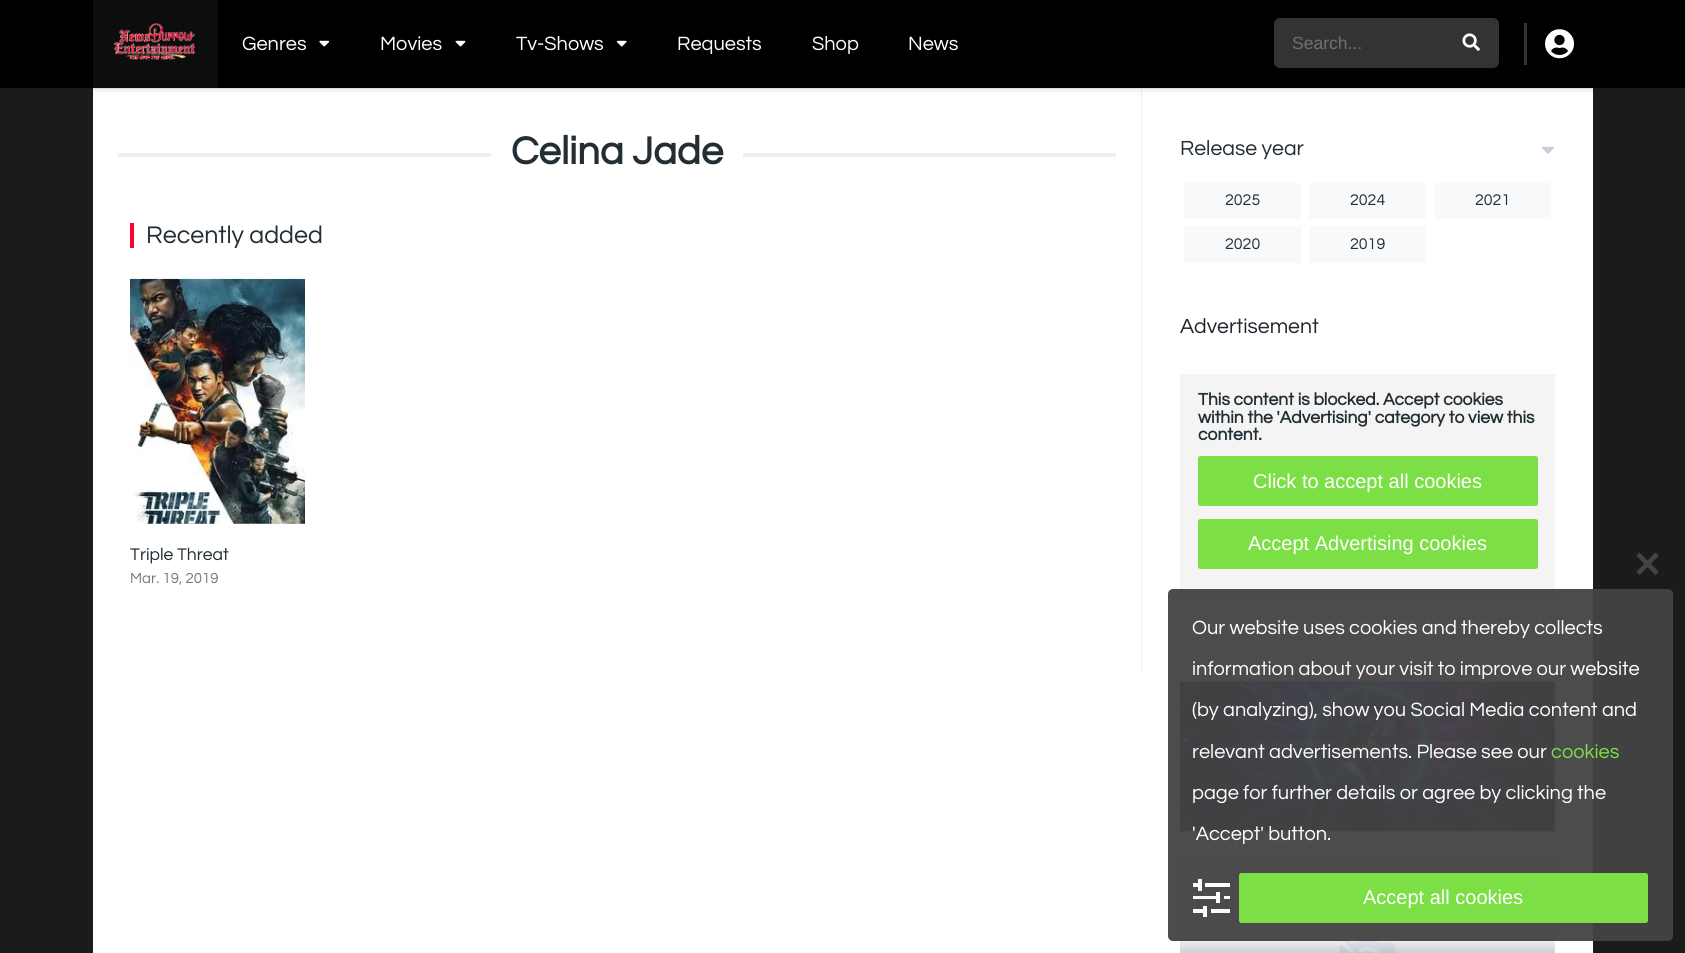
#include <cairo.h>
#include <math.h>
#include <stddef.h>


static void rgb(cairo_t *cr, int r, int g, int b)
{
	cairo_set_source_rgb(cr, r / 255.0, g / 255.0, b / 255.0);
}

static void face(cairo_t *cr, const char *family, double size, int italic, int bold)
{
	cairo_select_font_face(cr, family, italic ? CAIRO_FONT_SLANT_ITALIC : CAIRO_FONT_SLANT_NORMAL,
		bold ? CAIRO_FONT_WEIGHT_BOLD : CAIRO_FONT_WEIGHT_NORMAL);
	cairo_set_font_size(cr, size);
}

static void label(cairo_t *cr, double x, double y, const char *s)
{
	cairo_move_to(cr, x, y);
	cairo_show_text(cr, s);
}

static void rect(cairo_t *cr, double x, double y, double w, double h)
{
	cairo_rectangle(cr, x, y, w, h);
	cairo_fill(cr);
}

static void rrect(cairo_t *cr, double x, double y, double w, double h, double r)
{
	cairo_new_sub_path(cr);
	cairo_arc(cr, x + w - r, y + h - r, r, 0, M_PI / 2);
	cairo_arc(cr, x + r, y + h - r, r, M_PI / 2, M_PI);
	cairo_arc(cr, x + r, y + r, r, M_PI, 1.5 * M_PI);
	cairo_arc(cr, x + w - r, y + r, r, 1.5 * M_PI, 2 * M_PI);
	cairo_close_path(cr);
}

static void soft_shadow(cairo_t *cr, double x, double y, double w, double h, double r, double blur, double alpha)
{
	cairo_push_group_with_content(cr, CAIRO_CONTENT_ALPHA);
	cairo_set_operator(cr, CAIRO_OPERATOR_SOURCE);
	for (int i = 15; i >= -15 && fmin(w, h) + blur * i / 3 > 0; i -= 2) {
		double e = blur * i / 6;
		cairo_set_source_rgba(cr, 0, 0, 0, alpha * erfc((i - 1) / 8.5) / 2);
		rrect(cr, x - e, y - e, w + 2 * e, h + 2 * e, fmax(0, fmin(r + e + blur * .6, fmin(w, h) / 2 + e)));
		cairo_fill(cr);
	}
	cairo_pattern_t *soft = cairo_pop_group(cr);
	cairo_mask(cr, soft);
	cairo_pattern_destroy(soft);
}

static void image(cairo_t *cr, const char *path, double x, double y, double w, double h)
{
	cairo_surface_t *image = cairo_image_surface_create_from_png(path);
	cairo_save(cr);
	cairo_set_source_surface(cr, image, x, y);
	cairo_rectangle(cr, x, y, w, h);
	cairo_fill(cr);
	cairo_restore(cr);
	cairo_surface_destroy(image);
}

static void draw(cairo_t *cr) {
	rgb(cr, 27, 27, 27);
	cairo_paint(cr);
	rgb(cr, 255, 255, 255);
	rect(cr, 93, 89, 1500, 864);
	rgb(cr, 236, 239, 245);
	rect(cr, 93, 88, 1500, 1);
	rect(cr, 1141, 89, 1, 584);
	rgb(cr, 0, 0, 0);
	soft_shadow(cr, 9, 21, 1667, 70, 0, 3, 0.09);
	rgb(cr, 0, 0, 0);
	rect(cr, 0, 0, 1685, 88);
	rgb(cr, 13, 13, 13);
	rect(cr, 93, 0, 125, 88);
	image(cr, "image0.png", 113, 23, 83, 37);
	face(cr, "Questrial", 20, 0, 0);
	rgb(cr, 255, 255, 255);
	label(cr, 242, 50, "Genres");
	image(cr, "image1.png", 319, 40, 11, 7);
	label(cr, 380, 50, "Movies");
	image(cr, "image2.png", 455, 40, 11, 7);
	label(cr, 516, 50, "Tv-Shows");
	image(cr, "image3.png", 616, 40, 11, 7);
	label(cr, 677, 50, "Requests");
	label(cr, 812, 50, "Shop");
	label(cr, 908, 50, "News");
	rgb(cr, 51, 51, 51);
	rrect(cr, 1274, 18, 225, 50, 6);
	cairo_fill(cr);
	face(cr, "Liberation Sans", 17.5, 0, 0);
	rgb(cr, 112, 112, 112);
	label(cr, 1292, 49, "Search...");
	image(cr, "image4.png", 1462, 33, 18, 18);
	rgb(cr, 51, 51, 51);
	rect(cr, 1524, 23, 3, 42);
	image(cr, "image5.png", 1545, 29, 30, 30);
	rgb(cr, 236, 239, 245);
	rect(cr, 118, 153, 373, 4);
	face(cr, "Questrial", 40, 0, 1);
	rgb(cr, 34, 45, 52);
	label(cr, 511, 164, "Celina Jade");
	rgb(cr, 236, 239, 245);
	rect(cr, 743, 153, 373, 4);
	rgb(cr, 255, 0, 54);
	rect(cr, 130, 223, 4, 25);
	face(cr, "Questrial", 25, 0, 0);
	rgb(cr, 34, 45, 52);
	label(cr, 146, 243, "Recently added");
	image(cr, "image6.png", 130, 278, 175, 246);
	face(cr, "Questrial", 17.5, 0, 0);
	label(cr, 130, 560, "Triple Threat");
	face(cr, "Questrial", 15, 0, 0);
	rgb(cr, 117, 122, 125);
	label(cr, 130, 583, "Mar. 19, 2019");
	face(cr, "Questrial", 21.25, 0, 0);
	rgb(cr, 34, 45, 52);
	label(cr, 1180, 155, "Release year");
	image(cr, "image7.png", 1541, 146, 13, 8);
	rgb(cr, 248, 249, 251);
	rect(cr, 1184, 183, 117, 36);
	face(cr, "Questrial", 16, 0, 0);
	rgb(cr, 34, 45, 52);
	label(cr, 1225, 205, "2025");
	rgb(cr, 248, 249, 251);
	rect(cr, 1309, 183, 117, 36);
	rgb(cr, 34, 45, 52);
	label(cr, 1350, 205, "2024");
	rgb(cr, 248, 249, 251);
	rect(cr, 1434, 183, 117, 36);
	rgb(cr, 34, 45, 52);
	label(cr, 1475, 205, "2021");
	rgb(cr, 248, 249, 251);
	rect(cr, 1184, 226, 117, 37);
	rgb(cr, 34, 45, 52);
	label(cr, 1225, 249, "2020");
	rgb(cr, 248, 249, 251);
	rect(cr, 1309, 226, 117, 37);
	rgb(cr, 34, 45, 52);
	label(cr, 1350, 249, "2019");
	face(cr, "Questrial", 21.25, 0, 0);
	rgb(cr, 32, 39, 45);
	label(cr, 1180, 333, "Advertisement");
	rgb(cr, 244, 244, 244);
	rect(cr, 1180, 374, 375, 225);
	face(cr, "Questrial", 17.5, 0, 1);
	rgb(cr, 34, 45, 52);
	label(cr, 1198, 405, "This content is blocked. Accept cookies");
	label(cr, 1198, 423, "within the 'Advertising' category to view this");
	label(cr, 1198, 440, "content.");
	rgb(cr, 124, 223, 70);
	rrect(cr, 1198, 456, 340, 50, 2.5);
	cairo_fill(cr);
	face(cr, "Liberation Sans", 20, 0, 0);
	rgb(cr, 255, 255, 255);
	label(cr, 1253, 488, "Click to accept all cookies");
	rgb(cr, 124, 223, 70);
	rrect(cr, 1198, 519, 340, 50, 2.5);
	cairo_fill(cr);
	rgb(cr, 255, 255, 255);
	label(cr, 1248, 550, "Accept Advertising cookies");
	image(cr, "image8.png", 1180, 681, 375, 151);
	image(cr, "image9.png", 1180, 856, 375, 97);
	cairo_set_source_rgba(cr, 0.267, 0.267, 0.267, 0.95);
	rrect(cr, 1168, 589, 505, 352, 5);
	cairo_fill(cr);
	image(cr, "image10.png", 1636, 552, 23, 23);
	face(cr, "Questrial", 20, 0, 0);
	rgb(cr, 255, 255, 255);
	label(cr, 1192, 634, "Our website uses cookies and thereby collects");
	label(cr, 1192, 675, "information about your visit to improve our website");
	label(cr, 1192, 716, "(by analyzing), show you Social Media content and");
	label(cr, 1192, 758, "relevant advertisements. Please see our");
	rgb(cr, 125, 224, 71);
	label(cr, 1551, 758, "cookies");
	rgb(cr, 255, 255, 255);
	label(cr, 1192, 799, "page for further details or agree by clicking the");
	label(cr, 1192, 840, "'Accept' button.");
	image(cr, "image11.png", 1193, 879, 37, 38);
	rgb(cr, 124, 223, 70);
	rrect(cr, 1239, 873, 409, 50, 2.5);
	cairo_fill(cr);
	face(cr, "Liberation Sans", 20, 0, 0);
	rgb(cr, 255, 255, 255);
	label(cr, 1363, 904, "Accept all cookies");
}

int main(void) {
	cairo_surface_t *surface = cairo_image_surface_create(CAIRO_FORMAT_RGB24, 1685, 953);
	cairo_t *cr = cairo_create(surface);
	cairo_font_options_t *options = cairo_font_options_create();
	cairo_font_options_set_hint_metrics(options, CAIRO_HINT_METRICS_OFF);
	cairo_font_options_set_hint_style(options, CAIRO_HINT_STYLE_NONE);
	cairo_set_font_options(cr, options);
	cairo_set_miter_limit(cr, 4);
	draw(cr);
	cairo_surface_write_to_png(surface, "render.png");
	cairo_font_options_destroy(options);
	cairo_destroy(cr);
	cairo_surface_destroy(surface);
	return 0;
}
